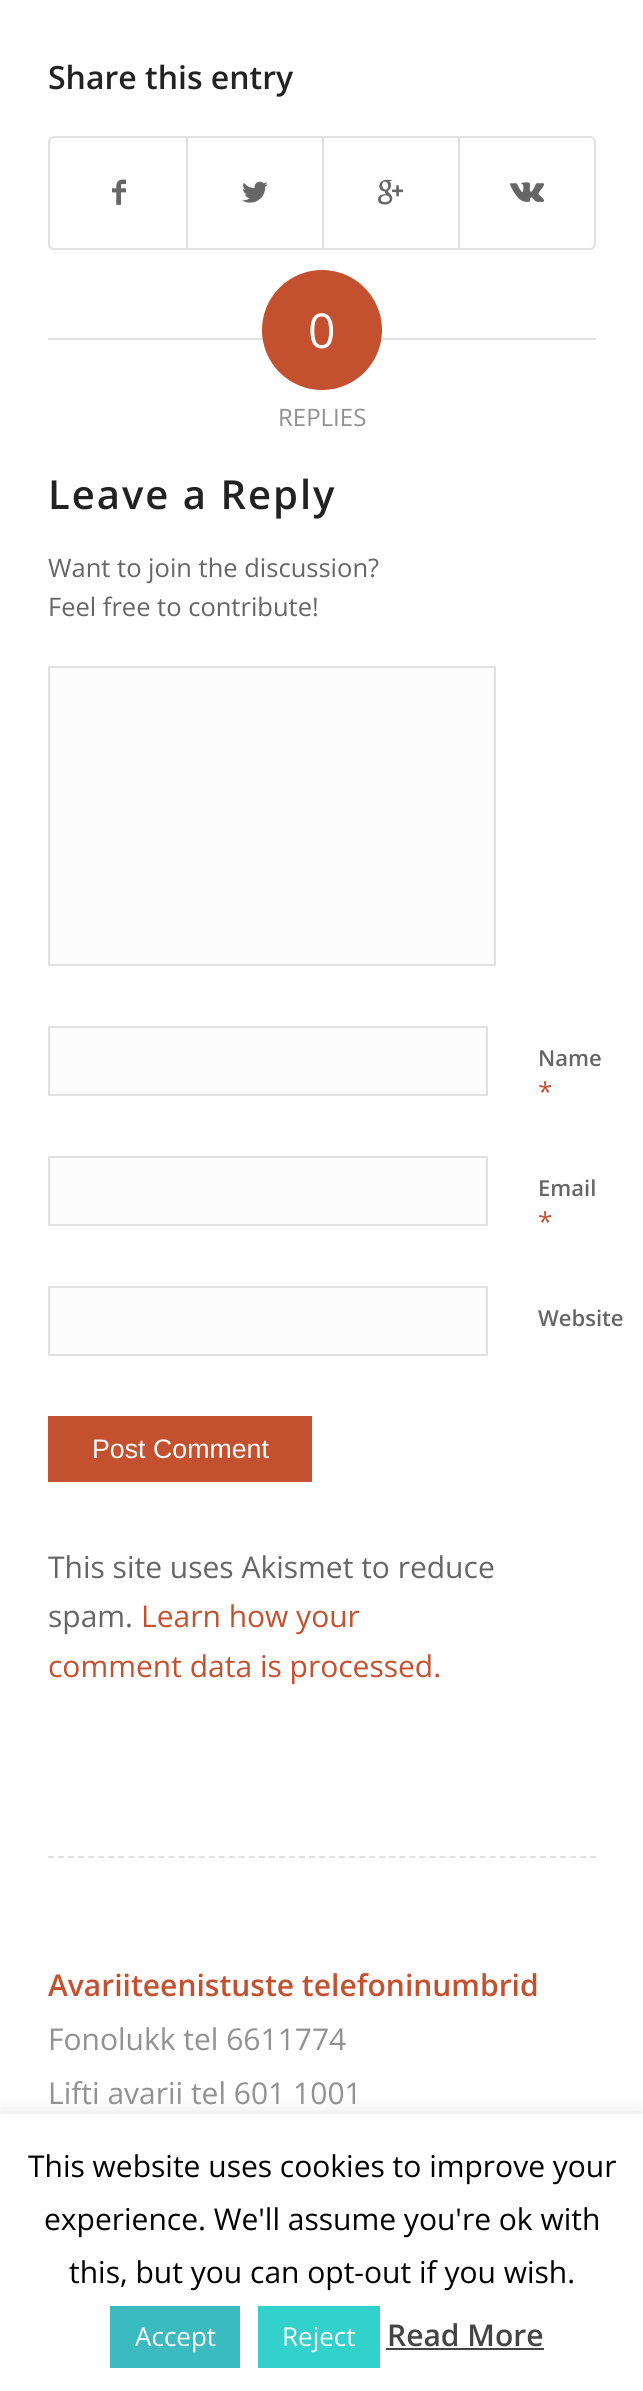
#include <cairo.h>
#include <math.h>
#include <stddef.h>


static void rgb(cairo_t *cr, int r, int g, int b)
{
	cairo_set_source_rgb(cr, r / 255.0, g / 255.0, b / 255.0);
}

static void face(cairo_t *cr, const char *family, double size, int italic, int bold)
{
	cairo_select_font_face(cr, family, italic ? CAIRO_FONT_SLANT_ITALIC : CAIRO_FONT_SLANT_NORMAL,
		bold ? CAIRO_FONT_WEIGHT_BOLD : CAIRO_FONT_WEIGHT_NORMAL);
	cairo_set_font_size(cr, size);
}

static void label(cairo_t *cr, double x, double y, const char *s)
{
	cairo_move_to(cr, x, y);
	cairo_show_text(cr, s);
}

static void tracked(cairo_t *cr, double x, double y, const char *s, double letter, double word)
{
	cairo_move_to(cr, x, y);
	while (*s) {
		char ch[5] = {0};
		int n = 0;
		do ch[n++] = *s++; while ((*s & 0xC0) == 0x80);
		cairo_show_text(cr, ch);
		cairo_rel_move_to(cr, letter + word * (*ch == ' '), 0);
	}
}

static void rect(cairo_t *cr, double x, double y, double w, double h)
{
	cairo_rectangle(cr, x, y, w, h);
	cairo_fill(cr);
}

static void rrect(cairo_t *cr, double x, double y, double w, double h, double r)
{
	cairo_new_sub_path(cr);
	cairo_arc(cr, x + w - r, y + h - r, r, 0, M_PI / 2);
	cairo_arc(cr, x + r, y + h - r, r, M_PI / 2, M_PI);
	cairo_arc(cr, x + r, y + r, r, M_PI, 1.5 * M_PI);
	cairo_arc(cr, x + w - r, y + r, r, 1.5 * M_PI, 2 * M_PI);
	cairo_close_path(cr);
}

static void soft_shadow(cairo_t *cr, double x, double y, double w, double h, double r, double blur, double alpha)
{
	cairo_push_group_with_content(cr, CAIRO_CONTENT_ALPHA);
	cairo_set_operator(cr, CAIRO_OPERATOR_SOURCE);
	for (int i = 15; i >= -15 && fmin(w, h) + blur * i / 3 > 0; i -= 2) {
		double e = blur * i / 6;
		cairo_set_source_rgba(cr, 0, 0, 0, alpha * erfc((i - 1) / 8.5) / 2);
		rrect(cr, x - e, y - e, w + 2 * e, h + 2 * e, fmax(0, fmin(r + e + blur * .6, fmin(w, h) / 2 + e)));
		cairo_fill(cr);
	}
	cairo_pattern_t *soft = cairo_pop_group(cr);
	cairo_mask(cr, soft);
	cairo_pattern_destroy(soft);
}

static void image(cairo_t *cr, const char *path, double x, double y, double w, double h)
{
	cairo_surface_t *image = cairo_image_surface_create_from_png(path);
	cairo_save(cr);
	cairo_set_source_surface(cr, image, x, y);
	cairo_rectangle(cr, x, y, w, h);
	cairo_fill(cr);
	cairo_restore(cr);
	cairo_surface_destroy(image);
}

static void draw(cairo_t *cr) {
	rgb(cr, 255, 255, 255);
	cairo_paint(cr);
	face(cr, "Open Sans SemiBold", 32, 0, 0);
	rgb(cr, 34, 34, 34);
	label(cr, 48, 89, "Share this entry");
	rrect(cr, 49, 137, 546, 112, 5);
	rgb(cr, 225, 225, 225);
	cairo_stroke(cr);
	image(cr, "image0.png", 112, 179, 14, 26);
	rect(cr, 186, 138, 2, 110);
	image(cr, "image1.png", 242, 181, 26, 22);
	rect(cr, 322, 138, 2, 110);
	image(cr, "image2.png", 378, 179, 26, 26);
	rect(cr, 458, 138, 2, 110);
	image(cr, "image3.png", 510, 182, 35, 20);
	rect(cr, 48, 338, 215, 2);
	rect(cr, 381, 338, 215, 2);
	rgb(cr, 195, 81, 47);
	cairo_arc(cr, 322, 330, 60, 0, 2 * M_PI);
	cairo_fill(cr);
	face(cr, "Open Sans", 48, 0, 0);
	rgb(cr, 255, 255, 255);
	label(cr, 308, 348, "0");
	face(cr, "Open Sans", 24, 0, 0);
	rgb(cr, 145, 145, 145);
	label(cr, 278, 426, "REPLIES");
	face(cr, "Open Sans SemiBold", 40, 0, 0);
	rgb(cr, 34, 34, 34);
	tracked(cr, 48, 509, "Leave a Reply", 2, 0);
	face(cr, "Open Sans", 25.5, 0, 0);
	rgb(cr, 102, 102, 102);
	label(cr, 48, 577, "Want to join the discussion?");
	label(cr, 48, 616, "Feel free to contribute!");
	rgb(cr, 252, 252, 252);
	cairo_rectangle(cr, 49, 667, 446, 298);
	cairo_fill_preserve(cr);
	rgb(cr, 225, 225, 225);
	cairo_stroke(cr);
	rgb(cr, 252, 252, 252);
	cairo_rectangle(cr, 49, 1027, 438, 68);
	cairo_fill_preserve(cr);
	rgb(cr, 225, 225, 225);
	cairo_stroke(cr);
	face(cr, "Open Sans SemiBold", 22, 0, 0);
	rgb(cr, 102, 102, 102);
	label(cr, 538, 1066, "Name");
	face(cr, "Open Sans", 26, 0, 0);
	rgb(cr, 195, 81, 47);
	label(cr, 538, 1101, "*");
	rgb(cr, 252, 252, 252);
	cairo_rectangle(cr, 49, 1157, 438, 68);
	cairo_fill_preserve(cr);
	rgb(cr, 225, 225, 225);
	cairo_stroke(cr);
	face(cr, "Open Sans SemiBold", 22, 0, 0);
	rgb(cr, 102, 102, 102);
	label(cr, 538, 1196, "Email");
	face(cr, "Open Sans", 26, 0, 0);
	rgb(cr, 195, 81, 47);
	label(cr, 538, 1231, "*");
	rgb(cr, 252, 252, 252);
	cairo_rectangle(cr, 49, 1287, 438, 68);
	cairo_fill_preserve(cr);
	rgb(cr, 225, 225, 225);
	cairo_stroke(cr);
	face(cr, "Open Sans SemiBold", 22, 0, 0);
	rgb(cr, 102, 102, 102);
	label(cr, 538, 1326, "Website");
	rgb(cr, 195, 81, 47);
	rect(cr, 48, 1416, 264, 66);
	face(cr, "Liberation Sans", 26.75, 0, 0);
	rgb(cr, 255, 255, 255);
	label(cr, 92, 1458, "Post Comment");
	face(cr, "Open Sans", 30, 0, 0);
	rgb(cr, 102, 102, 102);
	label(cr, 48, 1578, "This site uses Akismet to reduce");
	label(cr, 48, 1627, "spam.");
	rgb(cr, 195, 81, 47);
	label(cr, 141, 1627, "Learn how your");
	label(cr, 48, 1677, "comment data is processed.");
	cairo_new_path(cr);
	cairo_move_to(cr, 48, 1857);
	cairo_line_to(cr, 596, 1857);
	rgb(cr, 225, 225, 225);
	cairo_set_dash(cr, (double[]){6, 4.04}, 2, 0);
	cairo_stroke(cr);
	face(cr, "Open Sans SemiBold", 30, 0, 0);
	rgb(cr, 195, 81, 47);
	label(cr, 48, 1996, "Avariiteenistuste telefoninumbrid");
	face(cr, "Open Sans", 30, 0, 0);
	rgb(cr, 145, 145, 145);
	label(cr, 48, 2050, "Fonolukk tel 6611774");
	label(cr, 48, 2104, "Lifti avarii tel 601 1001");
	rgb(cr, 172, 171, 171);
	soft_shadow(cr, 0, 2112, 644, 278, 0, 10, 0.3);
	rgb(cr, 255, 255, 255);
	rect(cr, 0, 2114, 643, 277);
	rgb(cr, 0, 0, 0);
	label(cr, 28, 2177, "This website uses cookies to improve your");
	label(cr, 44, 2230, "experience. We'll assume you're ok with");
	label(cr, 69, 2283, "this, but you can opt-out if you wish.");
	rgb(cr, 59, 186, 191);
	rect(cr, 110, 2306, 130, 62);
	face(cr, "Open Sans", 26, 0, 0);
	rgb(cr, 255, 255, 255);
	label(cr, 135, 2346, "Accept");
	rgb(cr, 50, 209, 203);
	rect(cr, 258, 2306, 122, 62);
	rgb(cr, 255, 255, 255);
	label(cr, 282, 2346, "Reject");
	face(cr, "Open Sans SemiBold", 30, 0, 0);
	rgb(cr, 68, 68, 68);
	label(cr, 387, 2346, "Read More");
	rect(cr, 386, 2348, 158, 2);
}

int main(void) {
	cairo_surface_t *surface = cairo_image_surface_create(CAIRO_FORMAT_RGB24, 643, 2391);
	cairo_t *cr = cairo_create(surface);
	cairo_font_options_t *options = cairo_font_options_create();
	cairo_font_options_set_hint_metrics(options, CAIRO_HINT_METRICS_OFF);
	cairo_font_options_set_hint_style(options, CAIRO_HINT_STYLE_NONE);
	cairo_set_font_options(cr, options);
	cairo_set_miter_limit(cr, 4);
	draw(cr);
	cairo_surface_write_to_png(surface, "render.png");
	cairo_font_options_destroy(options);
	cairo_destroy(cr);
	cairo_surface_destroy(surface);
	return 0;
}
